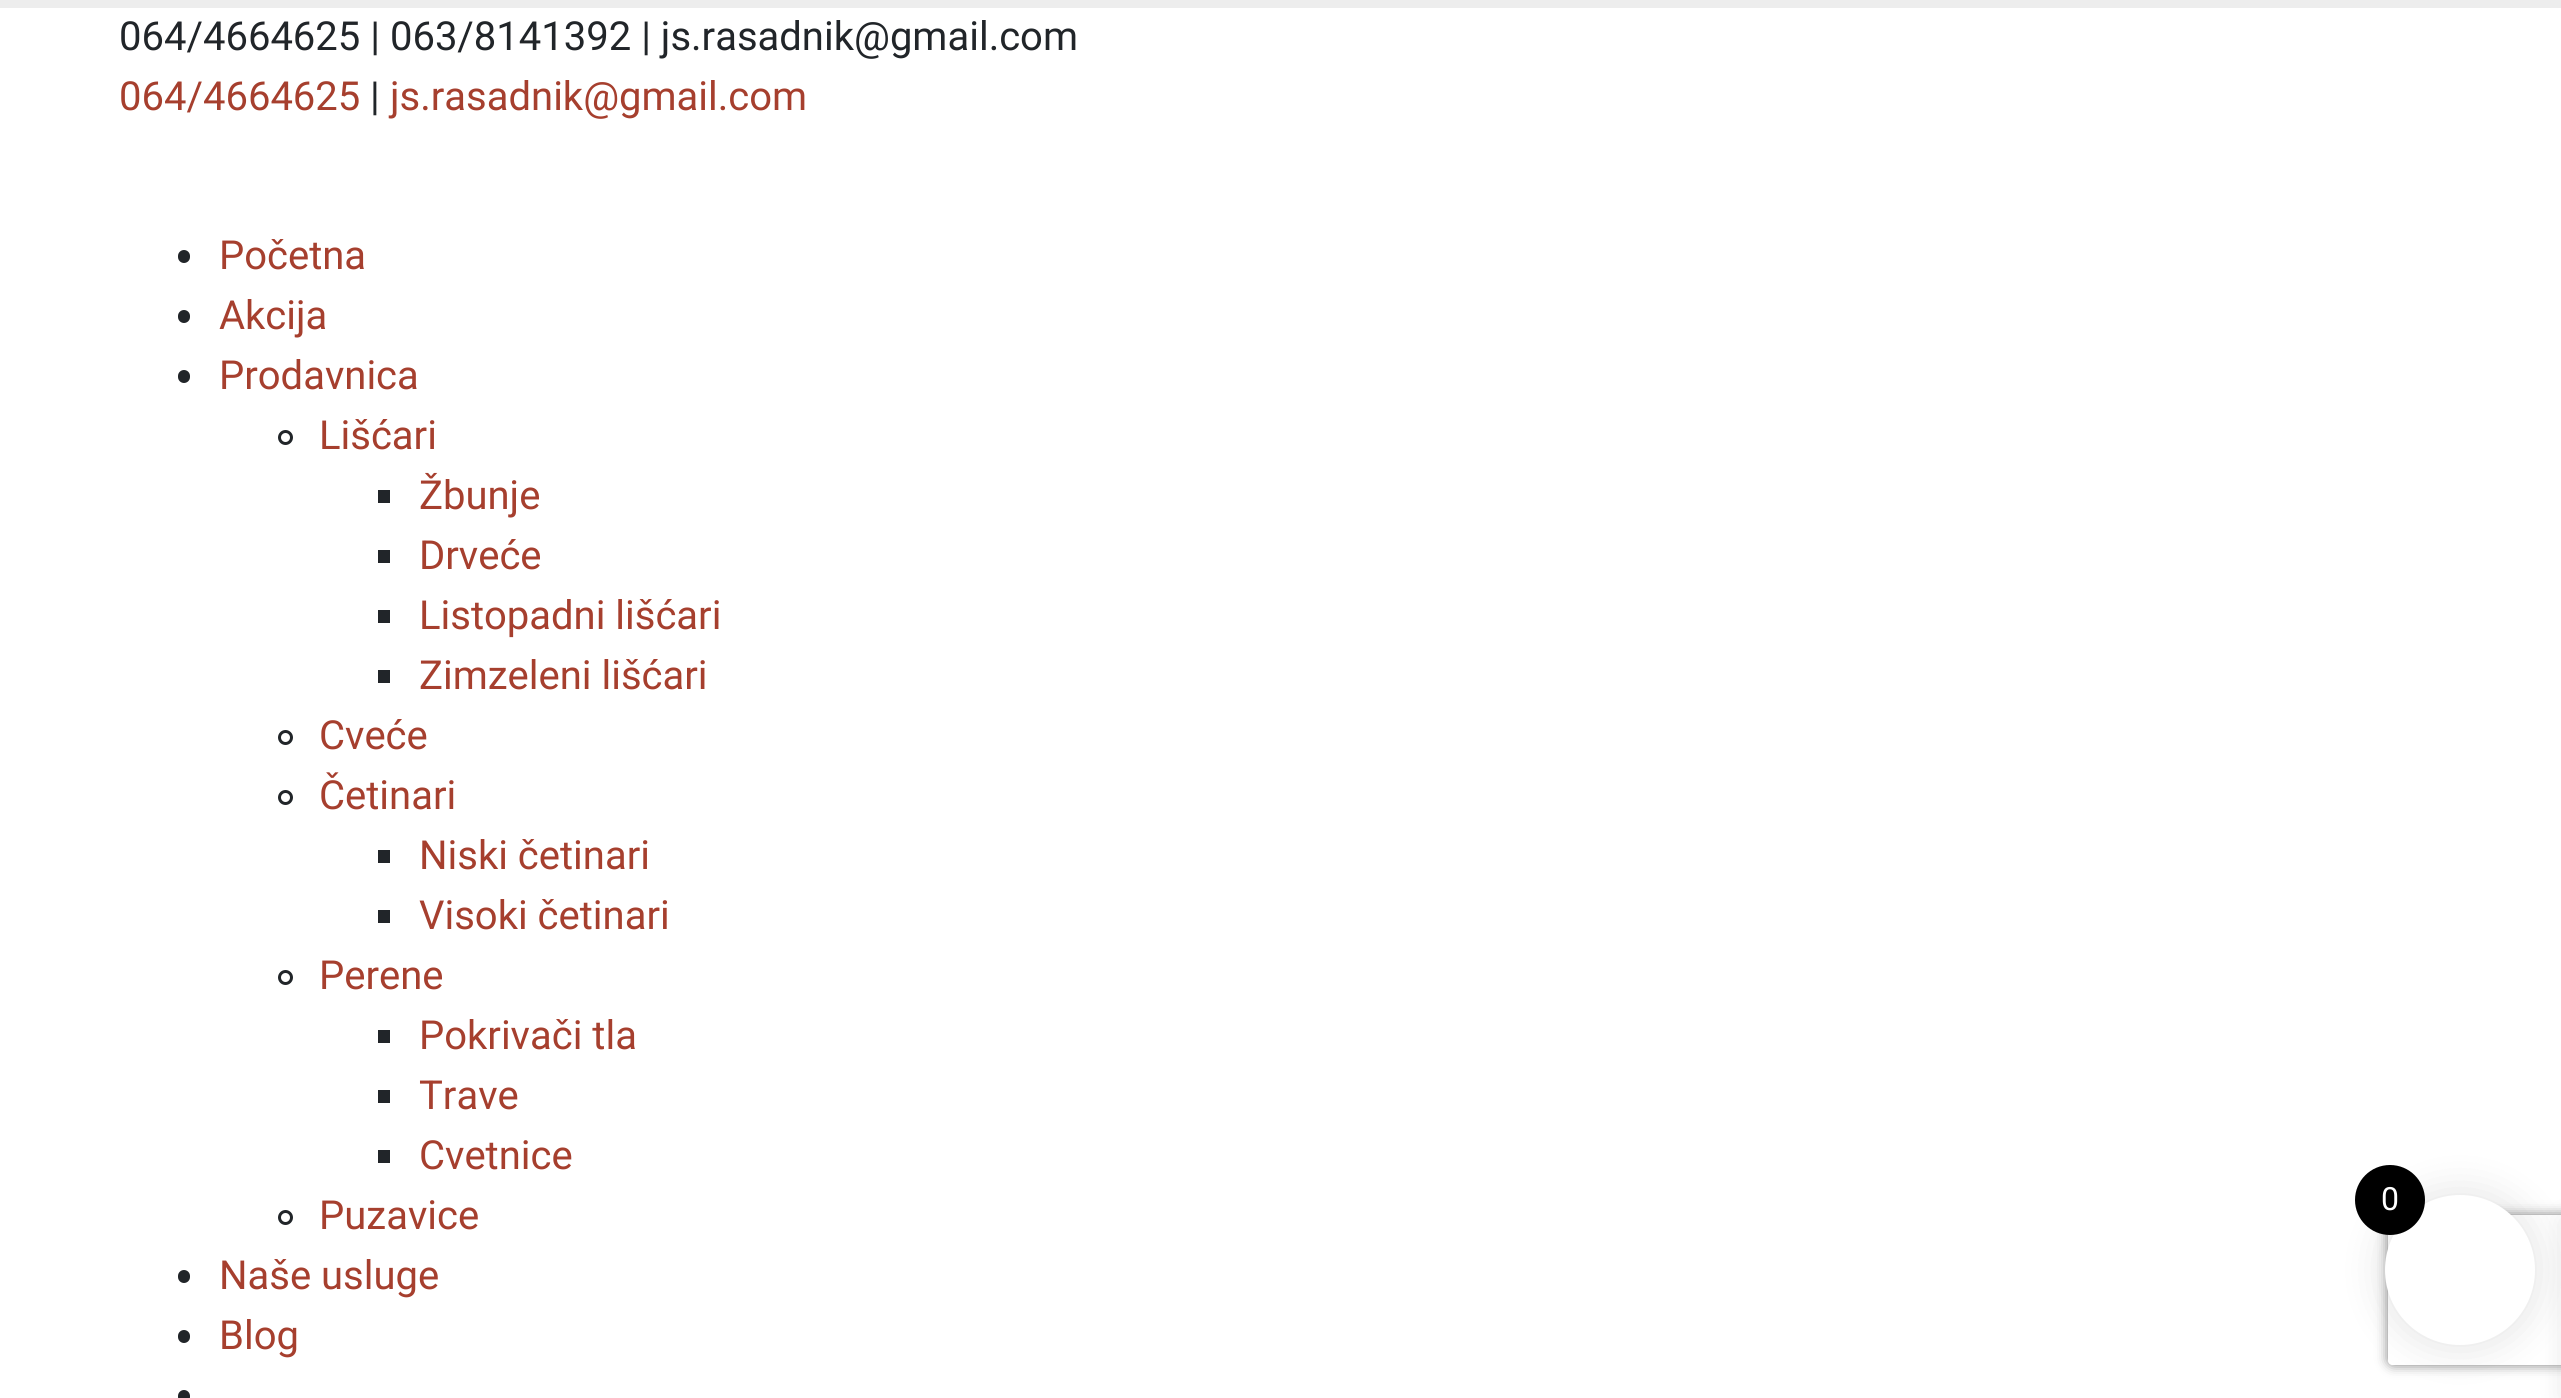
#include <cairo.h>
#include <math.h>
#include <stddef.h>


static void rgb(cairo_t *cr, int r, int g, int b)
{
	cairo_set_source_rgb(cr, r / 255.0, g / 255.0, b / 255.0);
}

static void face(cairo_t *cr, const char *family, double size, int italic, int bold)
{
	cairo_select_font_face(cr, family, italic ? CAIRO_FONT_SLANT_ITALIC : CAIRO_FONT_SLANT_NORMAL,
		bold ? CAIRO_FONT_WEIGHT_BOLD : CAIRO_FONT_WEIGHT_NORMAL);
	cairo_set_font_size(cr, size);
}

static void label(cairo_t *cr, double x, double y, const char *s)
{
	cairo_move_to(cr, x, y);
	cairo_show_text(cr, s);
}

static void rect(cairo_t *cr, double x, double y, double w, double h)
{
	cairo_rectangle(cr, x, y, w, h);
	cairo_fill(cr);
}

static void rrect(cairo_t *cr, double x, double y, double w, double h, double r)
{
	cairo_new_sub_path(cr);
	cairo_arc(cr, x + w - r, y + h - r, r, 0, M_PI / 2);
	cairo_arc(cr, x + r, y + h - r, r, M_PI / 2, M_PI);
	cairo_arc(cr, x + r, y + r, r, M_PI, 1.5 * M_PI);
	cairo_arc(cr, x + w - r, y + r, r, 1.5 * M_PI, 2 * M_PI);
	cairo_close_path(cr);
}

static void soft_shadow(cairo_t *cr, double x, double y, double w, double h, double r, double blur, double alpha)
{
	cairo_push_group_with_content(cr, CAIRO_CONTENT_ALPHA);
	cairo_set_operator(cr, CAIRO_OPERATOR_SOURCE);
	for (int i = 15; i >= -15 && fmin(w, h) + blur * i / 3 > 0; i -= 2) {
		double e = blur * i / 6;
		cairo_set_source_rgba(cr, 0, 0, 0, alpha * erfc((i - 1) / 8.5) / 2);
		rrect(cr, x - e, y - e, w + 2 * e, h + 2 * e, fmax(0, fmin(r + e + blur * .6, fmin(w, h) / 2 + e)));
		cairo_fill(cr);
	}
	cairo_pattern_t *soft = cairo_pop_group(cr);
	cairo_mask(cr, soft);
	cairo_pattern_destroy(soft);
}

static void draw(cairo_t *cr) {
	rgb(cr, 255, 255, 255);
	cairo_paint(cr);
	rgb(cr, 237, 237, 237);
	rect(cr, 0, 0, 2561, 8);
	face(cr, "Roboto", 40, 0, 0);
	rgb(cr, 33, 37, 41);
	label(cr, 119, 50, "064/4664625 | 063/8141392 | js.rasadnik@gmail.com");
	rgb(cr, 166, 63, 46);
	label(cr, 119, 110, "064/4664625");
	rgb(cr, 33, 37, 41);
	label(cr, 370, 110, "|");
	rgb(cr, 166, 63, 46);
	label(cr, 390, 110, "js.rasadnik@gmail.com");
	rgb(cr, 33, 37, 41);
	rrect(cr, 178, 250, 12, 13, 6);
	cairo_fill(cr);
	rgb(cr, 166, 63, 46);
	label(cr, 219, 269, "Početna");
	rgb(cr, 33, 37, 41);
	rrect(cr, 178, 310, 12, 13, 6);
	cairo_fill(cr);
	rgb(cr, 166, 63, 46);
	label(cr, 219, 329, "Akcija");
	rgb(cr, 33, 37, 41);
	rrect(cr, 178, 370, 12, 13, 6);
	cairo_fill(cr);
	rgb(cr, 166, 63, 46);
	label(cr, 219, 389, "Prodavnica");
	cairo_new_path(cr);
	cairo_arc(cr, 285.5, 437.5, 6, 0, 2 * M_PI);
	rgb(cr, 33, 37, 41);
	cairo_set_line_width(cr, 3);
	cairo_stroke(cr);
	rgb(cr, 166, 63, 46);
	label(cr, 319, 449, "Lišćari");
	rgb(cr, 33, 37, 41);
	rect(cr, 378, 490, 12, 13);
	rgb(cr, 166, 63, 46);
	label(cr, 419, 509, "Žbunje");
	rgb(cr, 33, 37, 41);
	rect(cr, 378, 550, 12, 13);
	rgb(cr, 166, 63, 46);
	label(cr, 419, 569, "Drveće");
	rgb(cr, 33, 37, 41);
	rect(cr, 378, 610, 12, 13);
	rgb(cr, 166, 63, 46);
	label(cr, 419, 629, "Listopadni lišćari");
	rgb(cr, 33, 37, 41);
	rect(cr, 378, 670, 12, 13);
	rgb(cr, 166, 63, 46);
	label(cr, 419, 689, "Zimzeleni lišćari");
	cairo_new_path(cr);
	cairo_arc(cr, 285.5, 737.5, 6, 0, 2 * M_PI);
	rgb(cr, 33, 37, 41);
	cairo_stroke(cr);
	rgb(cr, 166, 63, 46);
	label(cr, 319, 749, "Cveće");
	cairo_new_path(cr);
	cairo_arc(cr, 285.5, 797.5, 6, 0, 2 * M_PI);
	rgb(cr, 33, 37, 41);
	cairo_stroke(cr);
	rgb(cr, 166, 63, 46);
	label(cr, 319, 809, "Četinari");
	rgb(cr, 33, 37, 41);
	rect(cr, 378, 850, 12, 13);
	rgb(cr, 166, 63, 46);
	label(cr, 419, 869, "Niski četinari");
	rgb(cr, 33, 37, 41);
	rect(cr, 378, 910, 12, 13);
	rgb(cr, 166, 63, 46);
	label(cr, 419, 929, "Visoki četinari");
	cairo_new_path(cr);
	cairo_arc(cr, 285.5, 977.5, 6, 0, 2 * M_PI);
	rgb(cr, 33, 37, 41);
	cairo_stroke(cr);
	rgb(cr, 166, 63, 46);
	label(cr, 319, 989, "Perene");
	rgb(cr, 33, 37, 41);
	rect(cr, 378, 1030, 12, 13);
	rgb(cr, 166, 63, 46);
	label(cr, 419, 1049, "Pokrivači tla");
	rgb(cr, 33, 37, 41);
	rect(cr, 378, 1090, 12, 13);
	rgb(cr, 166, 63, 46);
	label(cr, 419, 1109, "Trave");
	rgb(cr, 33, 37, 41);
	rect(cr, 378, 1150, 12, 13);
	rgb(cr, 166, 63, 46);
	label(cr, 419, 1169, "Cvetnice");
	cairo_new_path(cr);
	cairo_arc(cr, 285.5, 1217.5, 6, 0, 2 * M_PI);
	rgb(cr, 33, 37, 41);
	cairo_stroke(cr);
	rgb(cr, 166, 63, 46);
	label(cr, 319, 1229, "Puzavice");
	rgb(cr, 33, 37, 41);
	rrect(cr, 178, 1270, 12, 13, 6);
	cairo_fill(cr);
	rgb(cr, 166, 63, 46);
	label(cr, 219, 1289, "Naše usluge");
	rgb(cr, 33, 37, 41);
	rrect(cr, 178, 1330, 12, 13, 6);
	cairo_fill(cr);
	rgb(cr, 166, 63, 46);
	label(cr, 219, 1349, "Blog");
	rgb(cr, 33, 37, 41);
	rrect(cr, 178, 1390, 12, 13, 6);
	cairo_fill(cr);
	rgb(cr, 0, 0, 0);
	soft_shadow(cr, 2380, 1190, 160, 160, 80, 19, 0.1);
	soft_shadow(cr, 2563, 1220, 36, 178, 0, 12.5, 0.1);
	cairo_save(cr);
	cairo_set_fill_rule(cr, CAIRO_FILL_RULE_EVEN_ODD);
	cairo_new_path(cr);
	cairo_move_to(cr, 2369, 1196);
	cairo_line_to(cr, 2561, 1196);
	cairo_line_to(cr, 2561, 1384);
	cairo_line_to(cr, 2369, 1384);
	cairo_close_path(cr);
	cairo_move_to(cr, 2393, 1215);
	cairo_line_to(cr, 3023, 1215);
	cairo_curve_to(cr, 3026, 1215, 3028, 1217, 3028, 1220);
	cairo_line_to(cr, 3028, 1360);
	cairo_curve_to(cr, 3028, 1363, 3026, 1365, 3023, 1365);
	cairo_line_to(cr, 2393, 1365);
	cairo_curve_to(cr, 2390, 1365, 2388, 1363, 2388, 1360);
	cairo_line_to(cr, 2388, 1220);
	cairo_curve_to(cr, 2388, 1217, 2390, 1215, 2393, 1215);
	cairo_close_path(cr);
	cairo_clip(cr);
	rgb(cr, 128, 128, 128);
	soft_shadow(cr, 2388, 1215, 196, 150, 5, 6, 1);
	cairo_restore(cr);
	rgb(cr, 255, 255, 255);
	cairo_arc(cr, 2460, 1270, 75, 0, 2 * M_PI);
	cairo_fill(cr);
	rgb(cr, 0, 0, 0);
	cairo_arc(cr, 2390, 1200, 35, 0, 2 * M_PI);
	cairo_fill(cr);
	face(cr, "Roboto", 32, 0, 0);
	rgb(cr, 255, 255, 255);
	label(cr, 2381, 1210, "0");
}

int main(void) {
	cairo_surface_t *surface = cairo_image_surface_create(CAIRO_FORMAT_RGB24, 2561, 1398);
	cairo_t *cr = cairo_create(surface);
	cairo_font_options_t *options = cairo_font_options_create();
	cairo_font_options_set_hint_metrics(options, CAIRO_HINT_METRICS_OFF);
	cairo_font_options_set_hint_style(options, CAIRO_HINT_STYLE_NONE);
	cairo_set_font_options(cr, options);
	cairo_set_miter_limit(cr, 4);
	draw(cr);
	cairo_surface_write_to_png(surface, "render.png");
	cairo_font_options_destroy(options);
	cairo_destroy(cr);
	cairo_surface_destroy(surface);
	return 0;
}
